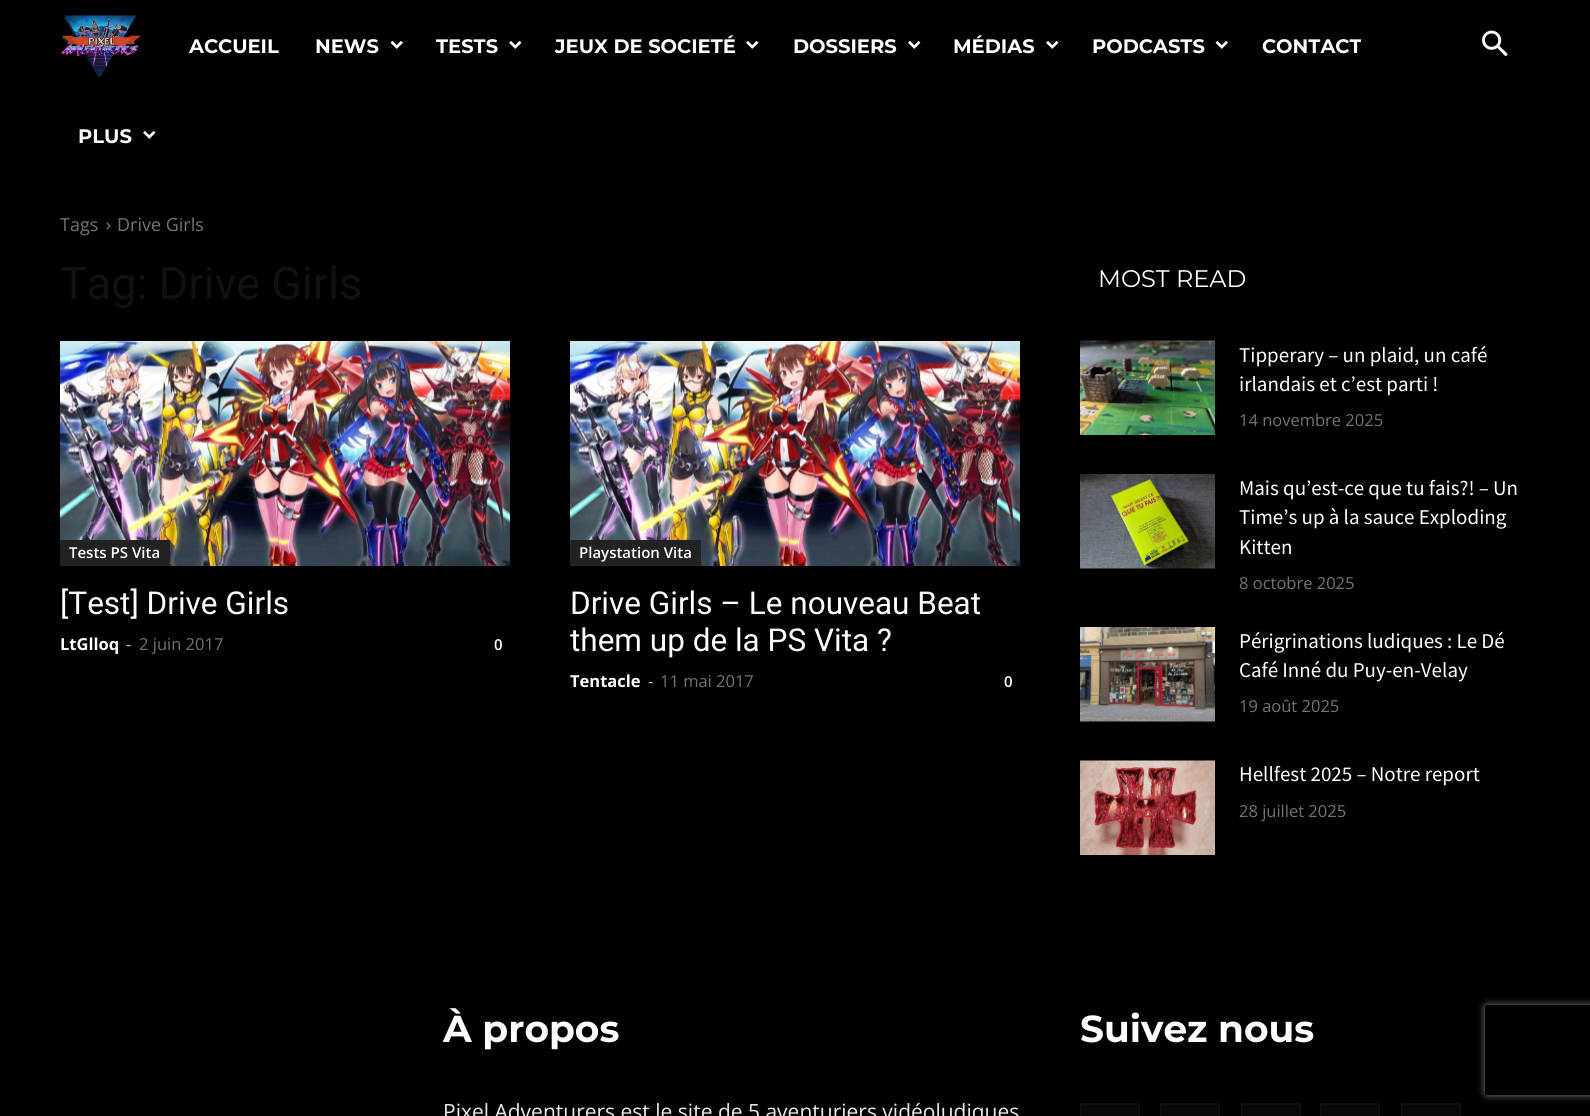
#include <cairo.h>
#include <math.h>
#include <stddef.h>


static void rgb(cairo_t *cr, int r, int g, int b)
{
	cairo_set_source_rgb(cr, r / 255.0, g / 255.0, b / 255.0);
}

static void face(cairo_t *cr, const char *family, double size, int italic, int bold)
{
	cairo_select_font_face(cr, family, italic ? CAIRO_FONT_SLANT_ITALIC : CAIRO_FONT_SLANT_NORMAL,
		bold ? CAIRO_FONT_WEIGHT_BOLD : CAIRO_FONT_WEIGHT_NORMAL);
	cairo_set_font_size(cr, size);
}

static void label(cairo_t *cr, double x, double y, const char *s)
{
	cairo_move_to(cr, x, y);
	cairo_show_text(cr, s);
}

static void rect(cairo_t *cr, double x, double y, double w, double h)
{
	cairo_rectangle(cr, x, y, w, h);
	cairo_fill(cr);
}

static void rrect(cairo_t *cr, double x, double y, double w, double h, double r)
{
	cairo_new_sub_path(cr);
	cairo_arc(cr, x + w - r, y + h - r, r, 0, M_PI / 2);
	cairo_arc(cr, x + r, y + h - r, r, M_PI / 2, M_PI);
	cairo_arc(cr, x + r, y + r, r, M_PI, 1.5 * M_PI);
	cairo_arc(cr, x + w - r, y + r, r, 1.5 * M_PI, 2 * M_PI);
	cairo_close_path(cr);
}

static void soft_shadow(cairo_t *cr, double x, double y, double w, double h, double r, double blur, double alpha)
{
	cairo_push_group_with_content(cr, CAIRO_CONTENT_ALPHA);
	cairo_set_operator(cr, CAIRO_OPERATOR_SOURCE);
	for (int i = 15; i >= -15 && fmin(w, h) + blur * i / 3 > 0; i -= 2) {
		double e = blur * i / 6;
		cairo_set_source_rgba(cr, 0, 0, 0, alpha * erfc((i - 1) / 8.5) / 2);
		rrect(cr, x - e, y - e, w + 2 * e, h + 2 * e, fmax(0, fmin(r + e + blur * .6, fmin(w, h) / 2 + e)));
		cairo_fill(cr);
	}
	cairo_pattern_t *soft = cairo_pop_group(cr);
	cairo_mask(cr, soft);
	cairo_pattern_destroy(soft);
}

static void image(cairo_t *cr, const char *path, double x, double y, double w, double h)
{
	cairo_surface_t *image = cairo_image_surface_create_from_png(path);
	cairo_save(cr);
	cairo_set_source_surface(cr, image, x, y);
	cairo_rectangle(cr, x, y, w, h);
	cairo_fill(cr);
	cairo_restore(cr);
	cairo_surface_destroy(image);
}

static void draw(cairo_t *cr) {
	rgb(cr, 0, 0, 0);
	cairo_paint(cr);
	image(cr, "image0.png", 60, 15, 81, 63);
	face(cr, "Montserrat", 19.5, 0, 1);
	rgb(cr, 255, 255, 255);
	label(cr, 189, 53, "ACCUEIL");
	label(cr, 315, 53, "NEWS");
	image(cr, "image1.png", 390, 41, 13, 8);
	label(cr, 436, 53, "TESTS");
	image(cr, "image2.png", 509, 41, 13, 8);
	label(cr, 555, 53, "JEUX DE SOCIETÉ");
	image(cr, "image2.png", 746, 41, 13, 8);
	label(cr, 793, 53, "DOSSIERS");
	image(cr, "image2.png", 908, 41, 13, 8);
	label(cr, 953, 53, "MÉDIAS");
	image(cr, "image2.png", 1046, 41, 13, 8);
	label(cr, 1092, 53, "PODCASTS");
	image(cr, "image1.png", 1215, 41, 13, 8);
	label(cr, 1262, 53, "CONTACT");
	label(cr, 78, 143, "PLUS");
	image(cr, "image2.png", 143, 131, 13, 8);
	image(cr, "image3.png", 1482, 30, 26, 26);
	face(cr, "Open Sans", 18, 0, 0);
	rgb(cr, 116, 116, 116);
	label(cr, 60, 231, "Tags");
	image(cr, "image4.png", 106, 222, 5, 8);
	label(cr, 117, 231, "Drive Girls");
	face(cr, "Roboto", 45, 0, 0);
	rgb(cr, 17, 17, 17);
	label(cr, 60, 299, "Tag: Drive Girls");
	image(cr, "image5.png", 60, 341, 450, 225);
	rgb(cr, 34, 34, 34);
	rect(cr, 60, 540, 110, 26);
	face(cr, "Open Sans SemiBold", 15, 0, 0);
	rgb(cr, 255, 255, 255);
	label(cr, 69, 558, "Tests PS Vita");
	face(cr, "Roboto", 31.5, 0, 0);
	label(cr, 60, 614, "[Test] Drive Girls");
	face(cr, "Open Sans", 16.5, 0, 1);
	label(cr, 60, 650, "LtGlloq");
	face(cr, "Open Sans", 16.5, 0, 0);
	rgb(cr, 204, 204, 204);
	label(cr, 126, 650, "-");
	rgb(cr, 116, 116, 116);
	label(cr, 139, 650, "2 juin 2017");
	face(cr, "Open Sans SemiBold", 15, 0, 0);
	rgb(cr, 255, 255, 255);
	label(cr, 494, 650, "0");
	image(cr, "image5.png", 570, 341, 450, 225);
	rgb(cr, 34, 34, 34);
	rect(cr, 570, 540, 131, 26);
	rgb(cr, 255, 255, 255);
	label(cr, 579, 558, "Playstation Vita");
	face(cr, "Roboto", 31.5, 0, 0);
	label(cr, 570, 614, "Drive Girls – Le nouveau Beat");
	label(cr, 570, 651, "them up de la PS Vita ?");
	face(cr, "Open Sans", 16.5, 0, 1);
	label(cr, 570, 687, "Tentacle");
	face(cr, "Open Sans", 16.5, 0, 0);
	rgb(cr, 204, 204, 204);
	label(cr, 648, 687, "-");
	rgb(cr, 116, 116, 116);
	label(cr, 660, 687, "11 mai 2017");
	face(cr, "Open Sans SemiBold", 15, 0, 0);
	rgb(cr, 255, 255, 255);
	label(cr, 1004, 687, "0");
	face(cr, "Montserrat", 24, 0, 0);
	label(cr, 1098, 287, "MOST READ");
	image(cr, "image6.png", 1080, 340, 135, 95);
	face(cr, "Source Sans Pro", 21, 0, 0);
	label(cr, 1239, 362, "Tipperary – un plaid, un café");
	label(cr, 1239, 391, "irlandais et c’est parti !");
	face(cr, "Open Sans", 16.5, 0, 0);
	rgb(cr, 116, 116, 116);
	label(cr, 1239, 426, "14 novembre 2025");
	image(cr, "image7.png", 1080, 474, 135, 95);
	face(cr, "Source Sans Pro", 21, 0, 0);
	rgb(cr, 255, 255, 255);
	label(cr, 1239, 495, "Mais qu’est-ce que tu fais?! – Un");
	label(cr, 1239, 524, "Time’s up à la sauce Exploding");
	label(cr, 1239, 554, "Kitten");
	face(cr, "Open Sans", 16.5, 0, 0);
	rgb(cr, 116, 116, 116);
	label(cr, 1239, 589, "8 octobre 2025");
	image(cr, "image8.png", 1080, 627, 135, 95);
	face(cr, "Source Sans Pro", 21, 0, 0);
	rgb(cr, 255, 255, 255);
	label(cr, 1239, 648, "Périgrinations ludiques : Le Dé");
	label(cr, 1239, 677, "Café Inné du Puy-en-Velay");
	face(cr, "Open Sans", 16.5, 0, 0);
	rgb(cr, 116, 116, 116);
	label(cr, 1239, 712, "19 août 2025");
	image(cr, "image9.png", 1080, 760, 135, 95);
	face(cr, "Source Sans Pro", 21, 0, 0);
	rgb(cr, 255, 255, 255);
	label(cr, 1239, 781, "Hellfest 2025 – Notre report");
	face(cr, "Open Sans", 16.5, 0, 0);
	rgb(cr, 116, 116, 116);
	label(cr, 1239, 817, "28 juillet 2025");
	face(cr, "Montserrat", 37.5, 0, 1);
	rgb(cr, 255, 255, 255);
	label(cr, 443, 1042, "À propos");
	face(cr, "Open Sans", 21, 0, 0);
	rgb(cr, 234, 234, 234);
	label(cr, 443, 1119, "Pixel Adventurers est le site de 5 aventuriers vidéoludiques");
	face(cr, "Montserrat", 37.5, 0, 1);
	rgb(cr, 255, 255, 255);
	label(cr, 1080, 1042, "Suivez nous");
	rgb(cr, 8, 8, 8);
	cairo_rectangle(cr, 1081, 1104, 58, 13);
	cairo_fill_preserve(cr);
	rgb(cr, 15, 15, 15);
	cairo_stroke(cr);
	rgb(cr, 8, 8, 8);
	cairo_rectangle(cr, 1161, 1104, 58, 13);
	cairo_fill_preserve(cr);
	rgb(cr, 15, 15, 15);
	cairo_stroke(cr);
	rgb(cr, 8, 8, 8);
	cairo_rectangle(cr, 1242, 1104, 58, 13);
	cairo_fill_preserve(cr);
	rgb(cr, 15, 15, 15);
	cairo_stroke(cr);
	rgb(cr, 8, 8, 8);
	cairo_rectangle(cr, 1321, 1104, 58, 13);
	cairo_fill_preserve(cr);
	rgb(cr, 15, 15, 15);
	cairo_stroke(cr);
	rgb(cr, 8, 8, 8);
	cairo_rectangle(cr, 1402, 1104, 58, 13);
	cairo_fill_preserve(cr);
	rgb(cr, 15, 15, 15);
	cairo_stroke(cr);
	cairo_save(cr);
	cairo_set_fill_rule(cr, CAIRO_FILL_RULE_EVEN_ODD);
	cairo_new_path(cr);
	cairo_move_to(cr, 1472, 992);
	cairo_line_to(cr, 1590, 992);
	cairo_line_to(cr, 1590, 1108);
	cairo_line_to(cr, 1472, 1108);
	cairo_close_path(cr);
	cairo_move_to(cr, 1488, 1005);
	cairo_line_to(cr, 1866, 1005);
	cairo_curve_to(cr, 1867.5, 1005, 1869, 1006.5, 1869, 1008);
	cairo_line_to(cr, 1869, 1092);
	cairo_curve_to(cr, 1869, 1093.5, 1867.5, 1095, 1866, 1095);
	cairo_line_to(cr, 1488, 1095);
	cairo_curve_to(cr, 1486.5, 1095, 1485, 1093.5, 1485, 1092);
	cairo_line_to(cr, 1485, 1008);
	cairo_curve_to(cr, 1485, 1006.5, 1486.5, 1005, 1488, 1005);
	cairo_close_path(cr);
	cairo_clip(cr);
	rgb(cr, 128, 128, 128);
	soft_shadow(cr, 1485, 1005, 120, 90, 3, 4, 1);
	cairo_restore(cr);
}

int main(void) {
	cairo_surface_t *surface = cairo_image_surface_create(CAIRO_FORMAT_RGB24, 1590, 1116);
	cairo_t *cr = cairo_create(surface);
	cairo_font_options_t *options = cairo_font_options_create();
	cairo_font_options_set_hint_metrics(options, CAIRO_HINT_METRICS_OFF);
	cairo_font_options_set_hint_style(options, CAIRO_HINT_STYLE_NONE);
	cairo_set_font_options(cr, options);
	cairo_set_miter_limit(cr, 4);
	draw(cr);
	cairo_surface_write_to_png(surface, "render.png");
	cairo_font_options_destroy(options);
	cairo_destroy(cr);
	cairo_surface_destroy(surface);
	return 0;
}
